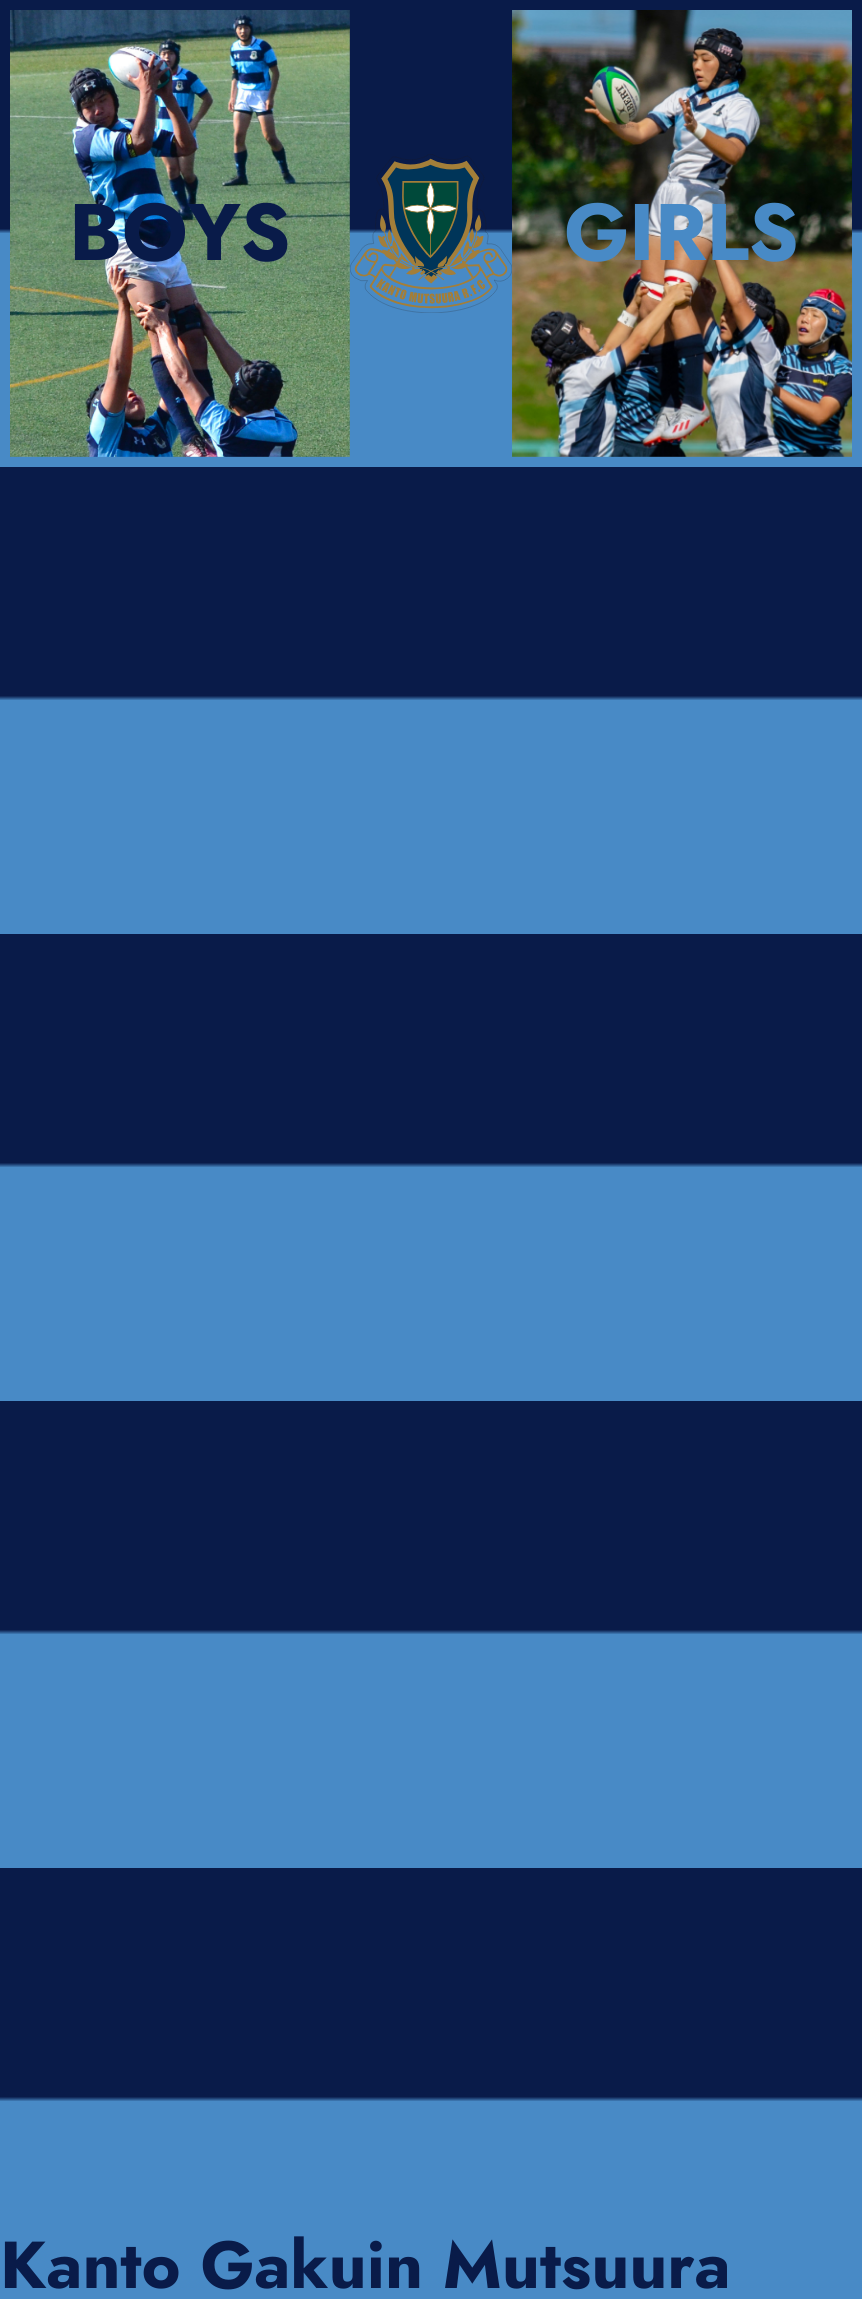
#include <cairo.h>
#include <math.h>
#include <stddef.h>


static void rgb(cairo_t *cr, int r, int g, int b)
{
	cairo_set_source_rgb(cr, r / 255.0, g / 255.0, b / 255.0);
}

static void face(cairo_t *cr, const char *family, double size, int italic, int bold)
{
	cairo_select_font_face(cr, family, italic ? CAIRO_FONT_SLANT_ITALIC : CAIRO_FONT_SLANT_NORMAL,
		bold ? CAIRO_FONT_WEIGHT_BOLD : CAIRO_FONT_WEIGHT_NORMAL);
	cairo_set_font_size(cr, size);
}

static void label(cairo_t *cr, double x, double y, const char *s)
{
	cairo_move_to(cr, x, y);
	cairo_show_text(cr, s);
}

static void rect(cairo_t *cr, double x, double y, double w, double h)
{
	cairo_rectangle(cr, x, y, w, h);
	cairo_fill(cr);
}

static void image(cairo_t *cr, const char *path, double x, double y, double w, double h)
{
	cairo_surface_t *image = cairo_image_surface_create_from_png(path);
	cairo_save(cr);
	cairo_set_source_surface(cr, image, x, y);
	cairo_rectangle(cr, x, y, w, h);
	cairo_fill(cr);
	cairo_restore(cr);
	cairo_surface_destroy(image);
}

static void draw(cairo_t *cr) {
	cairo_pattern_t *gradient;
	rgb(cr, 255, 255, 255);
	cairo_paint(cr);
	gradient = cairo_pattern_create_linear(431, 0, 431, 467);
	cairo_pattern_add_color_stop_rgba(gradient, 0, 0.035, 0.106, 0.286, 1);
	cairo_pattern_add_color_stop_rgba(gradient, 0.49, 0.035, 0.106, 0.286, 1);
	cairo_pattern_add_color_stop_rgba(gradient, 0.5, 0.282, 0.541, 0.776, 1);
	cairo_pattern_add_color_stop_rgba(gradient, 1, 0.282, 0.541, 0.776, 1);
	cairo_set_source(cr, gradient);
	cairo_pattern_destroy(gradient);
	rect(cr, 0, 0, 862, 467);
	gradient = cairo_pattern_create_linear(431, 467, 431, 934);
	cairo_pattern_add_color_stop_rgba(gradient, 0, 0.035, 0.106, 0.286, 1);
	cairo_pattern_add_color_stop_rgba(gradient, 0.49, 0.035, 0.106, 0.286, 1);
	cairo_pattern_add_color_stop_rgba(gradient, 0.5, 0.282, 0.541, 0.776, 1);
	cairo_pattern_add_color_stop_rgba(gradient, 1, 0.282, 0.541, 0.776, 1);
	cairo_set_source(cr, gradient);
	cairo_pattern_destroy(gradient);
	rect(cr, 0, 467, 862, 467);
	gradient = cairo_pattern_create_linear(431, 934, 431, 1401);
	cairo_pattern_add_color_stop_rgba(gradient, 0, 0.035, 0.106, 0.286, 1);
	cairo_pattern_add_color_stop_rgba(gradient, 0.49, 0.035, 0.106, 0.286, 1);
	cairo_pattern_add_color_stop_rgba(gradient, 0.5, 0.282, 0.541, 0.776, 1);
	cairo_pattern_add_color_stop_rgba(gradient, 1, 0.282, 0.541, 0.776, 1);
	cairo_set_source(cr, gradient);
	cairo_pattern_destroy(gradient);
	rect(cr, 0, 934, 862, 467);
	gradient = cairo_pattern_create_linear(431, 1401, 431, 1868);
	cairo_pattern_add_color_stop_rgba(gradient, 0, 0.035, 0.106, 0.286, 1);
	cairo_pattern_add_color_stop_rgba(gradient, 0.49, 0.035, 0.106, 0.286, 1);
	cairo_pattern_add_color_stop_rgba(gradient, 0.5, 0.282, 0.541, 0.776, 1);
	cairo_pattern_add_color_stop_rgba(gradient, 1, 0.282, 0.541, 0.776, 1);
	cairo_set_source(cr, gradient);
	cairo_pattern_destroy(gradient);
	rect(cr, 0, 1401, 862, 467);
	gradient = cairo_pattern_create_linear(431, 1868, 431, 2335);
	cairo_pattern_add_color_stop_rgba(gradient, 0, 0.035, 0.106, 0.286, 1);
	cairo_pattern_add_color_stop_rgba(gradient, 0.49, 0.035, 0.106, 0.286, 1);
	cairo_pattern_add_color_stop_rgba(gradient, 0.5, 0.282, 0.541, 0.776, 1);
	cairo_pattern_add_color_stop_rgba(gradient, 1, 0.282, 0.541, 0.776, 1);
	cairo_set_source(cr, gradient);
	cairo_pattern_destroy(gradient);
	rect(cr, 0, 1868, 862, 431);
	image(cr, "image0.png", 10, 10, 340, 447);
	face(cr, "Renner", 80, 0, 1);
	rgb(cr, 9, 27, 73);
	label(cr, 69, 260, "BOYS");
	image(cr, "image1.png", 350, 154, 162, 159);
	image(cr, "image2.png", 512, 10, 340, 447);
	rgb(cr, 72, 138, 198);
	label(cr, 564, 260, "GIRLS");
	face(cr, "Renner", 66.25, 0, 1);
	rgb(cr, 9, 27, 73);
	label(cr, 0, 2288, "Kanto Gakuin Mutsuura");
}

int main(void) {
	cairo_surface_t *surface = cairo_image_surface_create(CAIRO_FORMAT_RGB24, 862, 2299);
	cairo_t *cr = cairo_create(surface);
	cairo_font_options_t *options = cairo_font_options_create();
	cairo_font_options_set_hint_metrics(options, CAIRO_HINT_METRICS_OFF);
	cairo_font_options_set_hint_style(options, CAIRO_HINT_STYLE_NONE);
	cairo_set_font_options(cr, options);
	cairo_set_miter_limit(cr, 4);
	draw(cr);
	cairo_surface_write_to_png(surface, "render.png");
	cairo_font_options_destroy(options);
	cairo_destroy(cr);
	cairo_surface_destroy(surface);
	return 0;
}
